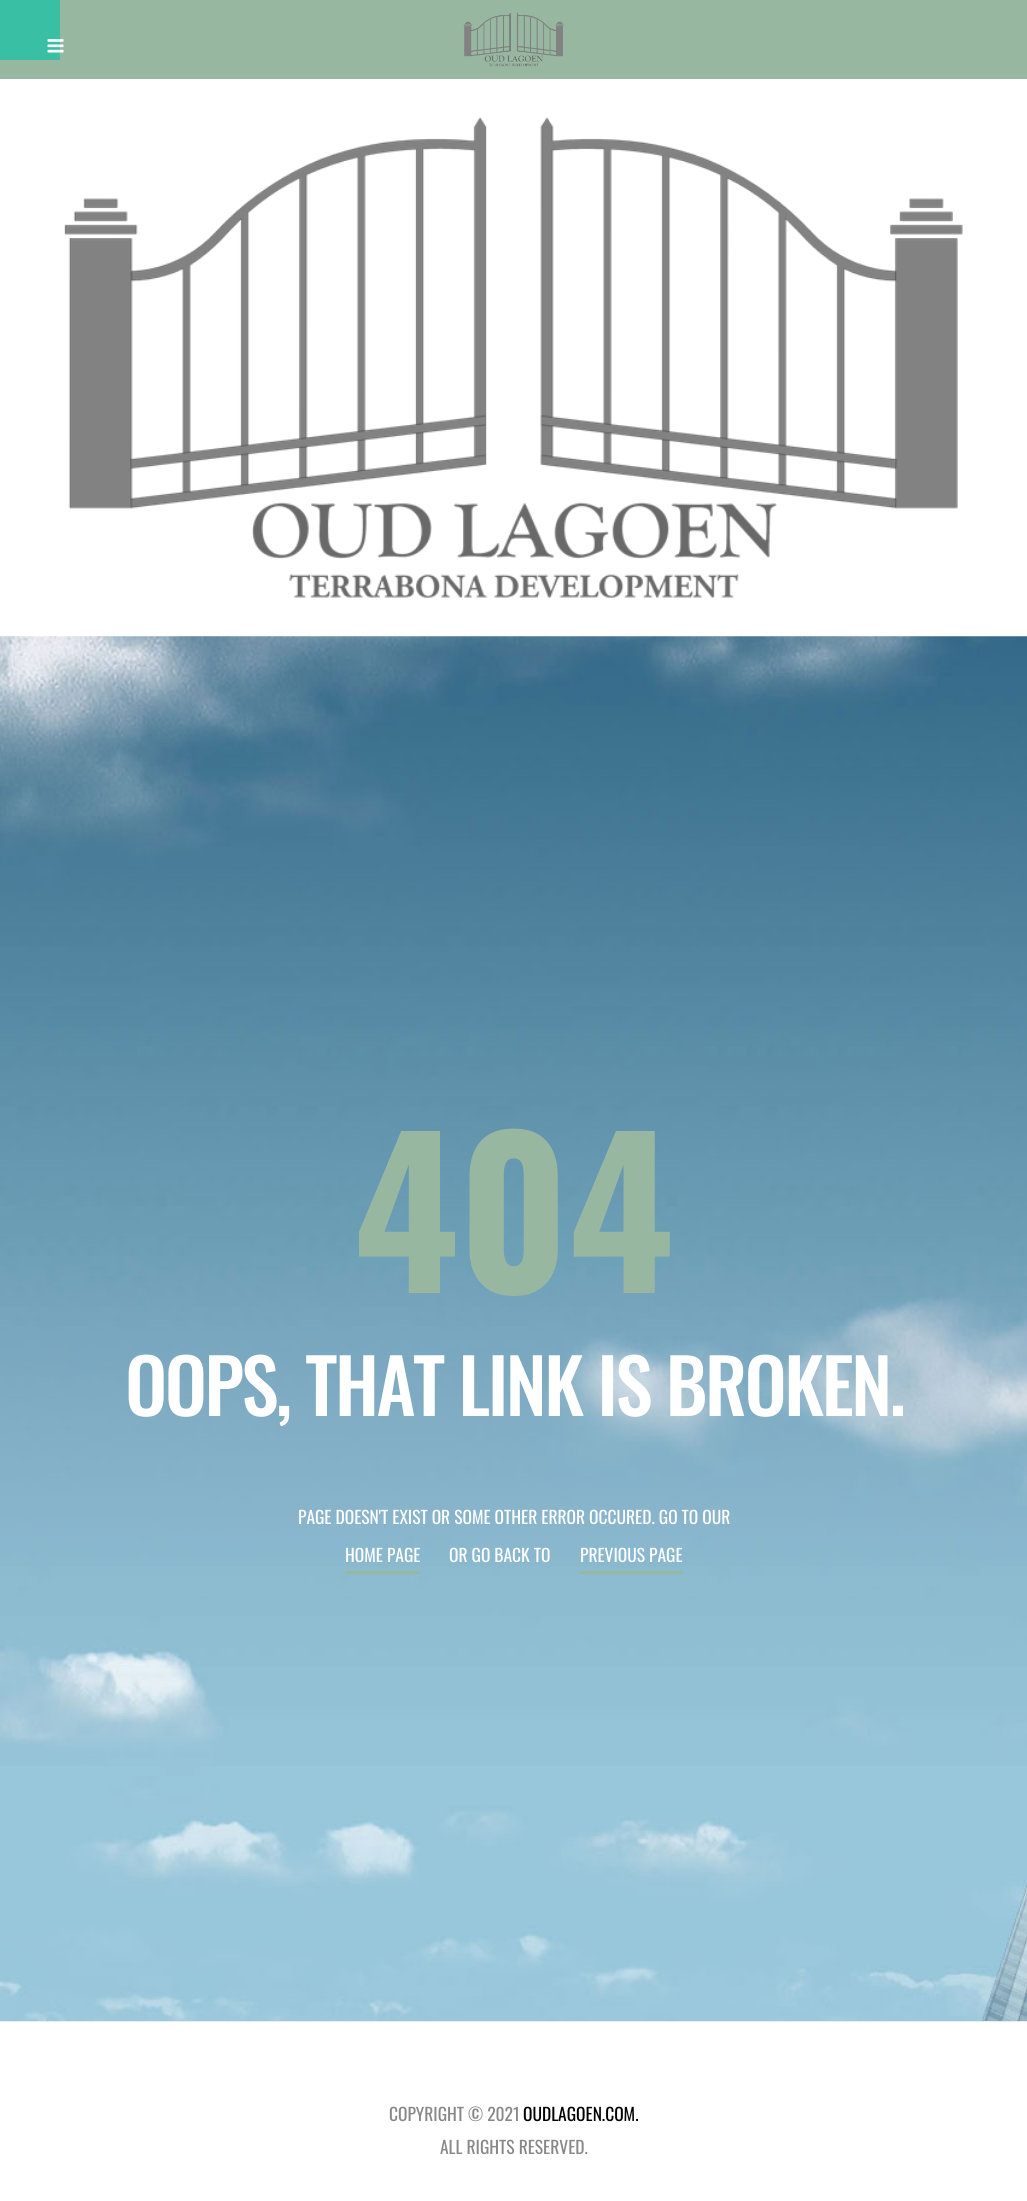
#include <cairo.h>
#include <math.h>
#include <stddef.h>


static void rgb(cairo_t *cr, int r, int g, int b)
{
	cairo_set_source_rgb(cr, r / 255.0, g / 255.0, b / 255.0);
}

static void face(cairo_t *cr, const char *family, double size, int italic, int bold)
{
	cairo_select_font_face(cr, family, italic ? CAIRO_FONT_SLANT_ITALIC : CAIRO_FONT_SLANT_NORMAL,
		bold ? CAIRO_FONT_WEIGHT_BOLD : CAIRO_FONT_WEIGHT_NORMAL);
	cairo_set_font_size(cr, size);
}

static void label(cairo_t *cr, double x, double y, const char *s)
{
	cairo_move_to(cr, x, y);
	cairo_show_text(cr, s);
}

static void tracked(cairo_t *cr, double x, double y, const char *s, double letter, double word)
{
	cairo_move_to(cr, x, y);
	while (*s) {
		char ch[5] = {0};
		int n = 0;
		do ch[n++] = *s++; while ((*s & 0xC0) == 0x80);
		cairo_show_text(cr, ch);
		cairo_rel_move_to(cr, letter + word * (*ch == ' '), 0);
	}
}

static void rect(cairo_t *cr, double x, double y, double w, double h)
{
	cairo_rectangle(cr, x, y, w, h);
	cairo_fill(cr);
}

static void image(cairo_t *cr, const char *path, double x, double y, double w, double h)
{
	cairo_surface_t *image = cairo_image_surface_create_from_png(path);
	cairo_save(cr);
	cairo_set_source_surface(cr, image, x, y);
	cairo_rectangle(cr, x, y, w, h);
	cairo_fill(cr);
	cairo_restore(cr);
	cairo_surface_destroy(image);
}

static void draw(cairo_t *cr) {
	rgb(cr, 255, 255, 255);
	cairo_paint(cr);
	rgb(cr, 152, 183, 161);
	rect(cr, 0, 0, 1027, 79);
	rgb(cr, 56, 191, 164);
	rect(cr, 0, 0, 60, 60);
	image(cr, "image0.png", 47, 39, 17, 14);
	image(cr, "image1.png", 463, 12, 101, 55);
	image(cr, "image2.png", 64, 117, 899, 482);
	image(cr, "image3.png", 0, 636, 1027, 1385);
	face(cr, "Oswald", 200, 0, 1);
	rgb(cr, 152, 183, 161);
	label(cr, 354, 1293, "404");
	face(cr, "Oswald Medium", 75, 0, 0);
	rgb(cr, 255, 255, 255);
	tracked(cr, 125, 1416, "OOPS, THAT LINK IS BROKEN.", -2.5, 0);
	face(cr, "Oswald", 17.5, 0, 0);
	label(cr, 298, 1524, "PAGE DOESN'T EXIST OR SOME OTHER ERROR OCCURED. GO TO OUR");
	label(cr, 345, 1562, "HOME PAGE");
	rgb(cr, 152, 183, 161);
	rect(cr, 345, 1571, 75, 3);
	rgb(cr, 255, 255, 255);
	label(cr, 449, 1562, "OR GO BACK TO");
	label(cr, 580, 1562, "PREVIOUS PAGE");
	rgb(cr, 152, 183, 161);
	rect(cr, 580, 1571, 103, 3);
	rgb(cr, 235, 235, 235);
	rect(cr, 0, 2021, 1027, 1);
	rgb(cr, 136, 136, 136);
	label(cr, 389, 2121, "COPYRIGHT © 2021");
	rgb(cr, 0, 0, 0);
	label(cr, 523, 2121, "OUDLAGOEN.COM.");
	rgb(cr, 136, 136, 136);
	label(cr, 440, 2154, "ALL RIGHTS RESERVED.");
}

int main(void) {
	cairo_surface_t *surface = cairo_image_surface_create(CAIRO_FORMAT_RGB24, 1027, 2201);
	cairo_t *cr = cairo_create(surface);
	cairo_font_options_t *options = cairo_font_options_create();
	cairo_font_options_set_hint_metrics(options, CAIRO_HINT_METRICS_OFF);
	cairo_font_options_set_hint_style(options, CAIRO_HINT_STYLE_NONE);
	cairo_set_font_options(cr, options);
	cairo_set_miter_limit(cr, 4);
	draw(cr);
	cairo_surface_write_to_png(surface, "render.png");
	cairo_font_options_destroy(options);
	cairo_destroy(cr);
	cairo_surface_destroy(surface);
	return 0;
}
